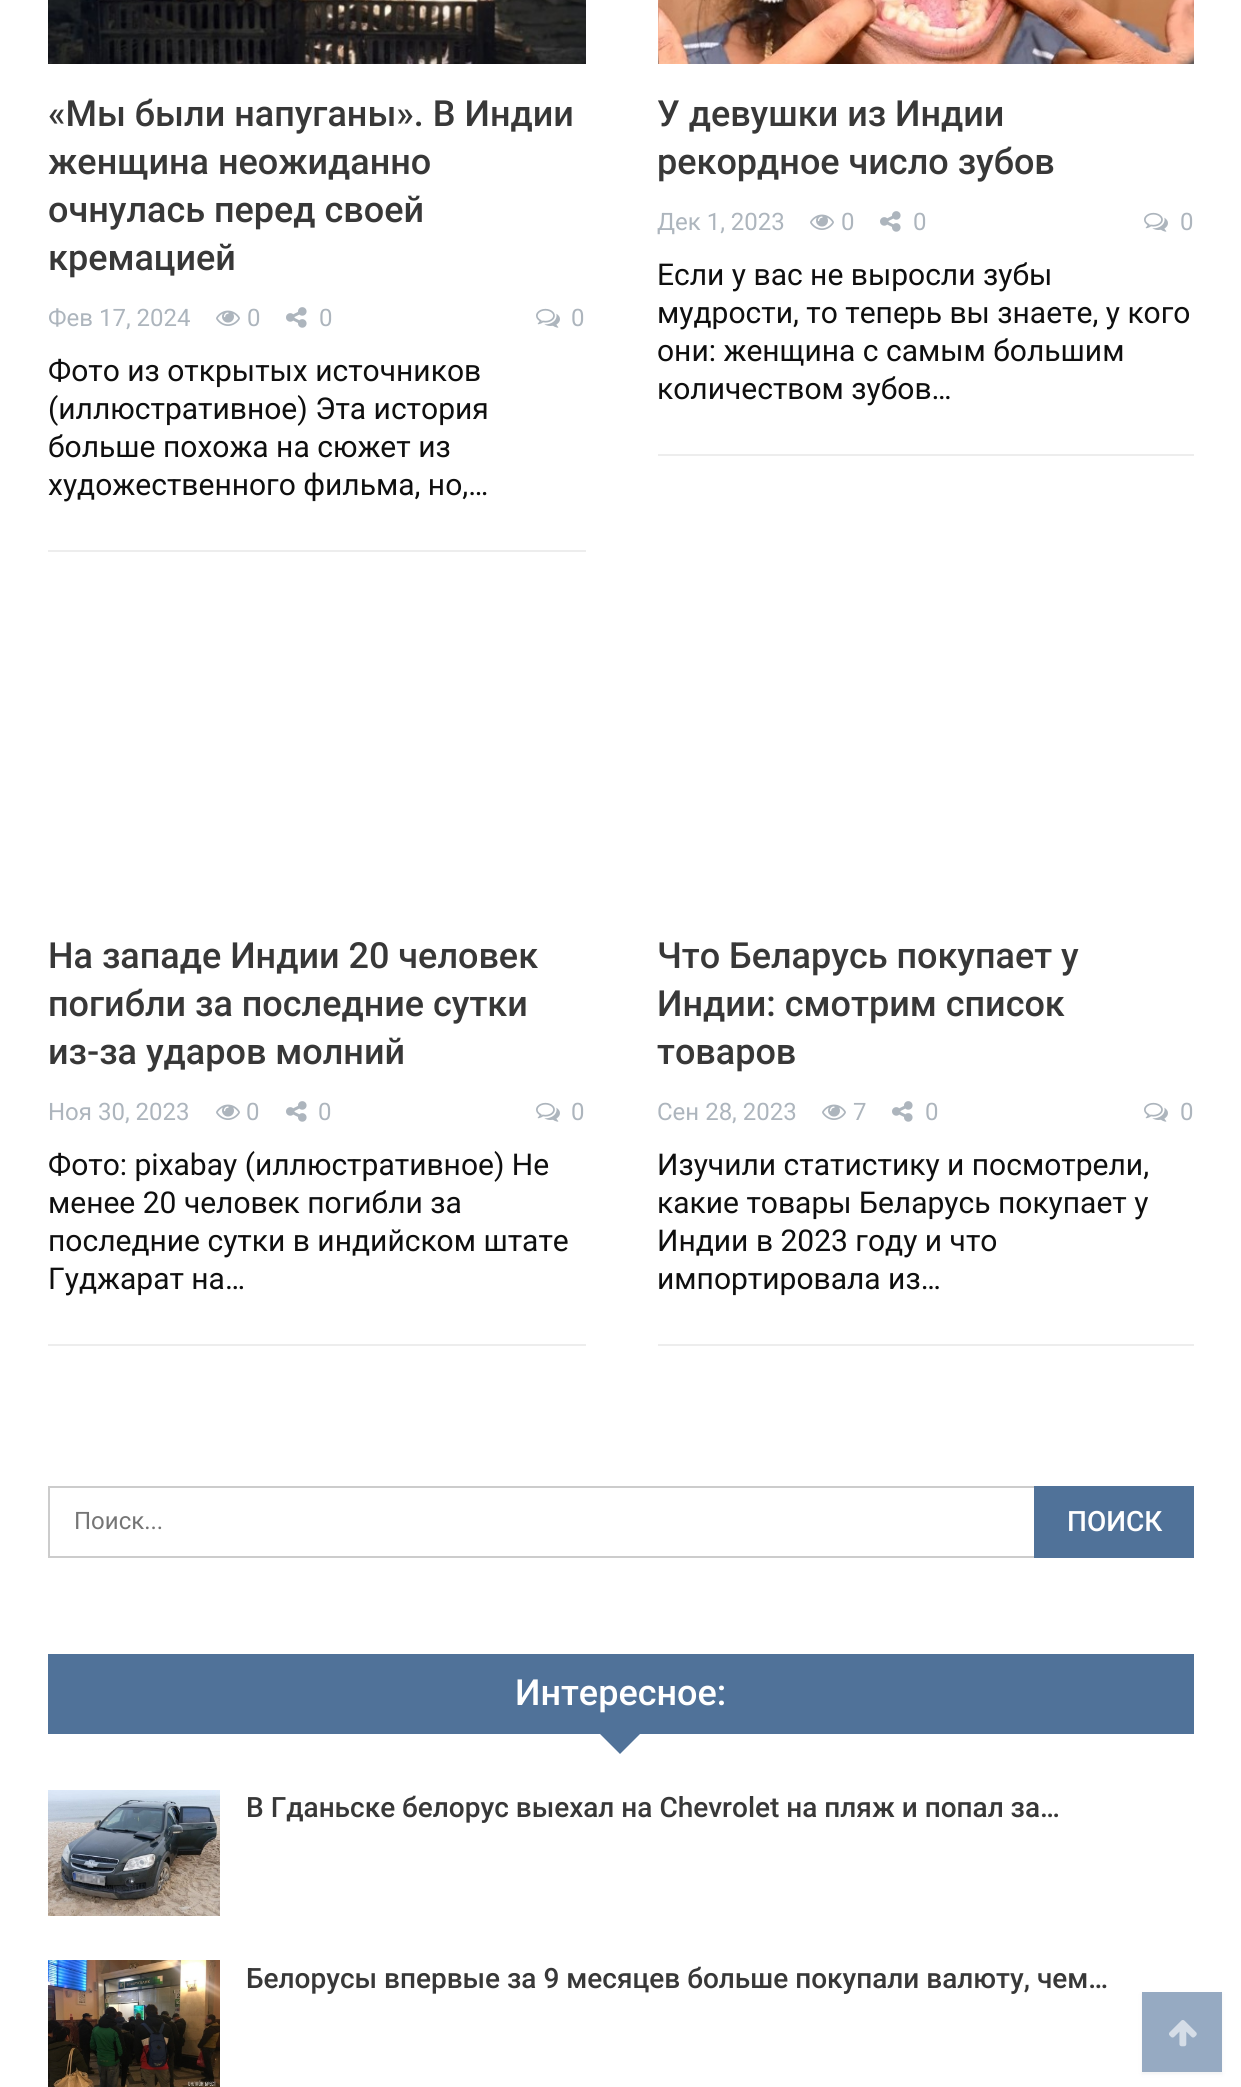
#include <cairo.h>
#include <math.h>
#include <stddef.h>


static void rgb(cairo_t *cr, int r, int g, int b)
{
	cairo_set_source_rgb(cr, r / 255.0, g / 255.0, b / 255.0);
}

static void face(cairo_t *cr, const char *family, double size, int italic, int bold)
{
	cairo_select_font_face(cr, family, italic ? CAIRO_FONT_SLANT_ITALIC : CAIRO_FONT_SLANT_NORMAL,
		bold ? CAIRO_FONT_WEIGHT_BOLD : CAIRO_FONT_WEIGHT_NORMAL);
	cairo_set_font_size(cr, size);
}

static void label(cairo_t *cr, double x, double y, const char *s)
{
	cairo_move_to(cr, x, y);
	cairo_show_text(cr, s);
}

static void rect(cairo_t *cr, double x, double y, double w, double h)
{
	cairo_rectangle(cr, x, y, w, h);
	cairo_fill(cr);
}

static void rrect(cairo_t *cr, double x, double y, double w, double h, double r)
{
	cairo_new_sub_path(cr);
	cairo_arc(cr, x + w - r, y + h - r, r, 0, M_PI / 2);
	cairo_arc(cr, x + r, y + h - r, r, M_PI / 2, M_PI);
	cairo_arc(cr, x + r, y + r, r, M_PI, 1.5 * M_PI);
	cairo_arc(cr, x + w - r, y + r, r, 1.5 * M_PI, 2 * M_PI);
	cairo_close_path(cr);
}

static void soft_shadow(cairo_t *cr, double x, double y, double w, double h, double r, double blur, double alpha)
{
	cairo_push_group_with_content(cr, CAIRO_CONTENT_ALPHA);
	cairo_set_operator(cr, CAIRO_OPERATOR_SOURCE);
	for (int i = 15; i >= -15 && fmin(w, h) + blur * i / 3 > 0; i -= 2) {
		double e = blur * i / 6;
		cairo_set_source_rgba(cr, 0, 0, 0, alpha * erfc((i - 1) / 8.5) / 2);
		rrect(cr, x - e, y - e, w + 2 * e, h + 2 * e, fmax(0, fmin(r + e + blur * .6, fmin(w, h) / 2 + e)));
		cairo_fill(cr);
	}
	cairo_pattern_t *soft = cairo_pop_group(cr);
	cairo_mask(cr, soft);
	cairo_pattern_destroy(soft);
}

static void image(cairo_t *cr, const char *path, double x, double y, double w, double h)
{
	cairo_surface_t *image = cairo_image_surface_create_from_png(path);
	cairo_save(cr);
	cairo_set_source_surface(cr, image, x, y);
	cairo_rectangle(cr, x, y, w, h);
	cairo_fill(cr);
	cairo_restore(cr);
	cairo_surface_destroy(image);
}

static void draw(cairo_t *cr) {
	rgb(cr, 255, 255, 255);
	cairo_paint(cr);
	image(cr, "image0.png", 48, 0, 538, 64);
	face(cr, "Roboto Medium", 36, 0, 0);
	rgb(cr, 56, 56, 56);
	label(cr, 48, 126, "«Мы были напуганы». В Индии");
	label(cr, 48, 174, "женщина неожиданно");
	label(cr, 48, 222, "очнулась перед своей");
	label(cr, 48, 270, "кремацией");
	face(cr, "Roboto", 24, 0, 0);
	rgb(cr, 173, 181, 189);
	label(cr, 48, 326, "Фев 17, 2024");
	image(cr, "image1.png", 216, 310, 24, 16);
	label(cr, 247, 326, "0");
	image(cr, "image2.png", 286, 307, 21, 21);
	label(cr, 319, 326, "0");
	image(cr, "image3.png", 536, 308, 24, 20);
	label(cr, 571, 326, "0");
	rgb(cr, 237, 237, 237);
	rect(cr, 48, 550, 538, 2);
	face(cr, "Roboto", 30, 0, 0);
	rgb(cr, 15, 15, 15);
	label(cr, 48, 381, "Фото из открытых источников");
	label(cr, 48, 419, "(иллюстративное) Эта история");
	label(cr, 48, 457, "больше похожа на сюжет из");
	label(cr, 48, 495, "художественного фильма, но,…");
	image(cr, "image4.png", 658, 0, 536, 64);
	face(cr, "Roboto Medium", 36, 0, 0);
	rgb(cr, 56, 56, 56);
	label(cr, 657, 126, "У девушки из Индии");
	label(cr, 657, 174, "рекордное число зубов");
	face(cr, "Roboto", 24, 0, 0);
	rgb(cr, 173, 181, 189);
	label(cr, 657, 230, "Дек 1, 2023");
	image(cr, "image1.png", 810, 214, 24, 16);
	label(cr, 841, 230, "0");
	image(cr, "image2.png", 880, 211, 21, 21);
	label(cr, 913, 230, "0");
	image(cr, "image3.png", 1144, 212, 24, 20);
	label(cr, 1180, 230, "0");
	rgb(cr, 237, 237, 237);
	rect(cr, 658, 454, 536, 2);
	face(cr, "Roboto", 30, 0, 0);
	rgb(cr, 15, 15, 15);
	label(cr, 657, 285, "Если у вас не выросли зубы");
	label(cr, 657, 323, "мудрости, то теперь вы знаете, у кого");
	label(cr, 657, 361, "они: женщина с самым большим");
	label(cr, 657, 399, "количеством зубов…");
	face(cr, "Roboto Medium", 36, 0, 0);
	rgb(cr, 56, 56, 56);
	label(cr, 48, 968, "На западе Индии 20 человек");
	label(cr, 48, 1016, "погибли за последние сутки");
	label(cr, 48, 1064, "из-за ударов молний");
	face(cr, "Roboto", 24, 0, 0);
	rgb(cr, 173, 181, 189);
	label(cr, 48, 1120, "Ноя 30, 2023");
	image(cr, "image1.png", 216, 1104, 24, 16);
	label(cr, 246, 1120, "0");
	image(cr, "image2.png", 286, 1101, 21, 21);
	label(cr, 318, 1120, "0");
	image(cr, "image3.png", 536, 1102, 24, 20);
	label(cr, 571, 1120, "0");
	rgb(cr, 237, 237, 237);
	rect(cr, 48, 1344, 538, 2);
	face(cr, "Roboto", 30, 0, 0);
	rgb(cr, 15, 15, 15);
	label(cr, 48, 1175, "Фото: pixabay (иллюстративное) Не");
	label(cr, 48, 1213, "менее 20 человек погибли за");
	label(cr, 48, 1251, "последние сутки в индийском штате");
	label(cr, 48, 1289, "Гуджарат на…");
	face(cr, "Roboto Medium", 36, 0, 0);
	rgb(cr, 56, 56, 56);
	label(cr, 657, 968, "Что Беларусь покупает у");
	label(cr, 657, 1016, "Индии: смотрим список");
	label(cr, 657, 1064, "товаров");
	face(cr, "Roboto", 24, 0, 0);
	rgb(cr, 173, 181, 189);
	label(cr, 657, 1120, "Сен 28, 2023");
	image(cr, "image1.png", 822, 1104, 24, 16);
	label(cr, 853, 1120, "7");
	image(cr, "image2.png", 892, 1101, 21, 21);
	label(cr, 925, 1120, "0");
	image(cr, "image3.png", 1144, 1102, 24, 20);
	label(cr, 1180, 1120, "0");
	rgb(cr, 237, 237, 237);
	rect(cr, 658, 1344, 536, 2);
	face(cr, "Roboto", 30, 0, 0);
	rgb(cr, 15, 15, 15);
	label(cr, 657, 1175, "Изучили статистику и посмотрели,");
	label(cr, 657, 1213, "какие товары Беларусь покупает у");
	label(cr, 657, 1251, "Индии в 2023 году и что");
	label(cr, 657, 1289, "импортировала из…");
	cairo_rectangle(cr, 49, 1487, 1144, 70);
	rgb(cr, 204, 204, 204);
	cairo_stroke(cr);
	face(cr, "Roboto", 24, 0, 0);
	rgb(cr, 117, 117, 117);
	label(cr, 74, 1529, "Поиск...");
	rgb(cr, 80, 114, 153);
	rect(cr, 1034, 1486, 160, 72);
	face(cr, "Roboto Medium", 28, 0, 0);
	rgb(cr, 255, 255, 255);
	label(cr, 1067, 1531, "ПОИСК");
	rgb(cr, 80, 114, 153);
	rect(cr, 48, 1654, 1146, 80);
	face(cr, "Roboto Medium", 36, 0, 0);
	rgb(cr, 255, 255, 255);
	label(cr, 515, 1705, "Интересное:");
	rgb(cr, 80, 114, 153);
	cairo_new_path(cr);
	cairo_move_to(cr, 600, 1734);
	cairo_line_to(cr, 640, 1734);
	cairo_line_to(cr, 620, 1754);
	cairo_close_path(cr);
	cairo_fill(cr);
	image(cr, "image5.png", 48, 1790, 172, 126);
	face(cr, "Roboto Medium", 28, 0, 0);
	rgb(cr, 56, 56, 56);
	label(cr, 246, 1817, "В Гданьске белорус выехал на Chevrolet на пляж и попал за…");
	image(cr, "image6.png", 48, 1960, 172, 127);
	label(cr, 246, 1988, "Белорусы впервые за 9 месяцев больше покупали валюту, чем…");
	rgb(cr, 102, 102, 102);
	soft_shadow(cr, 1142, 1994, 80, 80, 0, 2, 0.09);
	rgb(cr, 150, 170, 194);
	rect(cr, 1142, 1992, 80, 80);
	image(cr, "image7.png", 1169, 2020, 28, 27);
}

int main(void) {
	cairo_surface_t *surface = cairo_image_surface_create(CAIRO_FORMAT_RGB24, 1241, 2087);
	cairo_t *cr = cairo_create(surface);
	cairo_font_options_t *options = cairo_font_options_create();
	cairo_font_options_set_hint_metrics(options, CAIRO_HINT_METRICS_OFF);
	cairo_font_options_set_hint_style(options, CAIRO_HINT_STYLE_NONE);
	cairo_set_font_options(cr, options);
	cairo_set_miter_limit(cr, 4);
	draw(cr);
	cairo_surface_write_to_png(surface, "render.png");
	cairo_font_options_destroy(options);
	cairo_destroy(cr);
	cairo_surface_destroy(surface);
	return 0;
}
